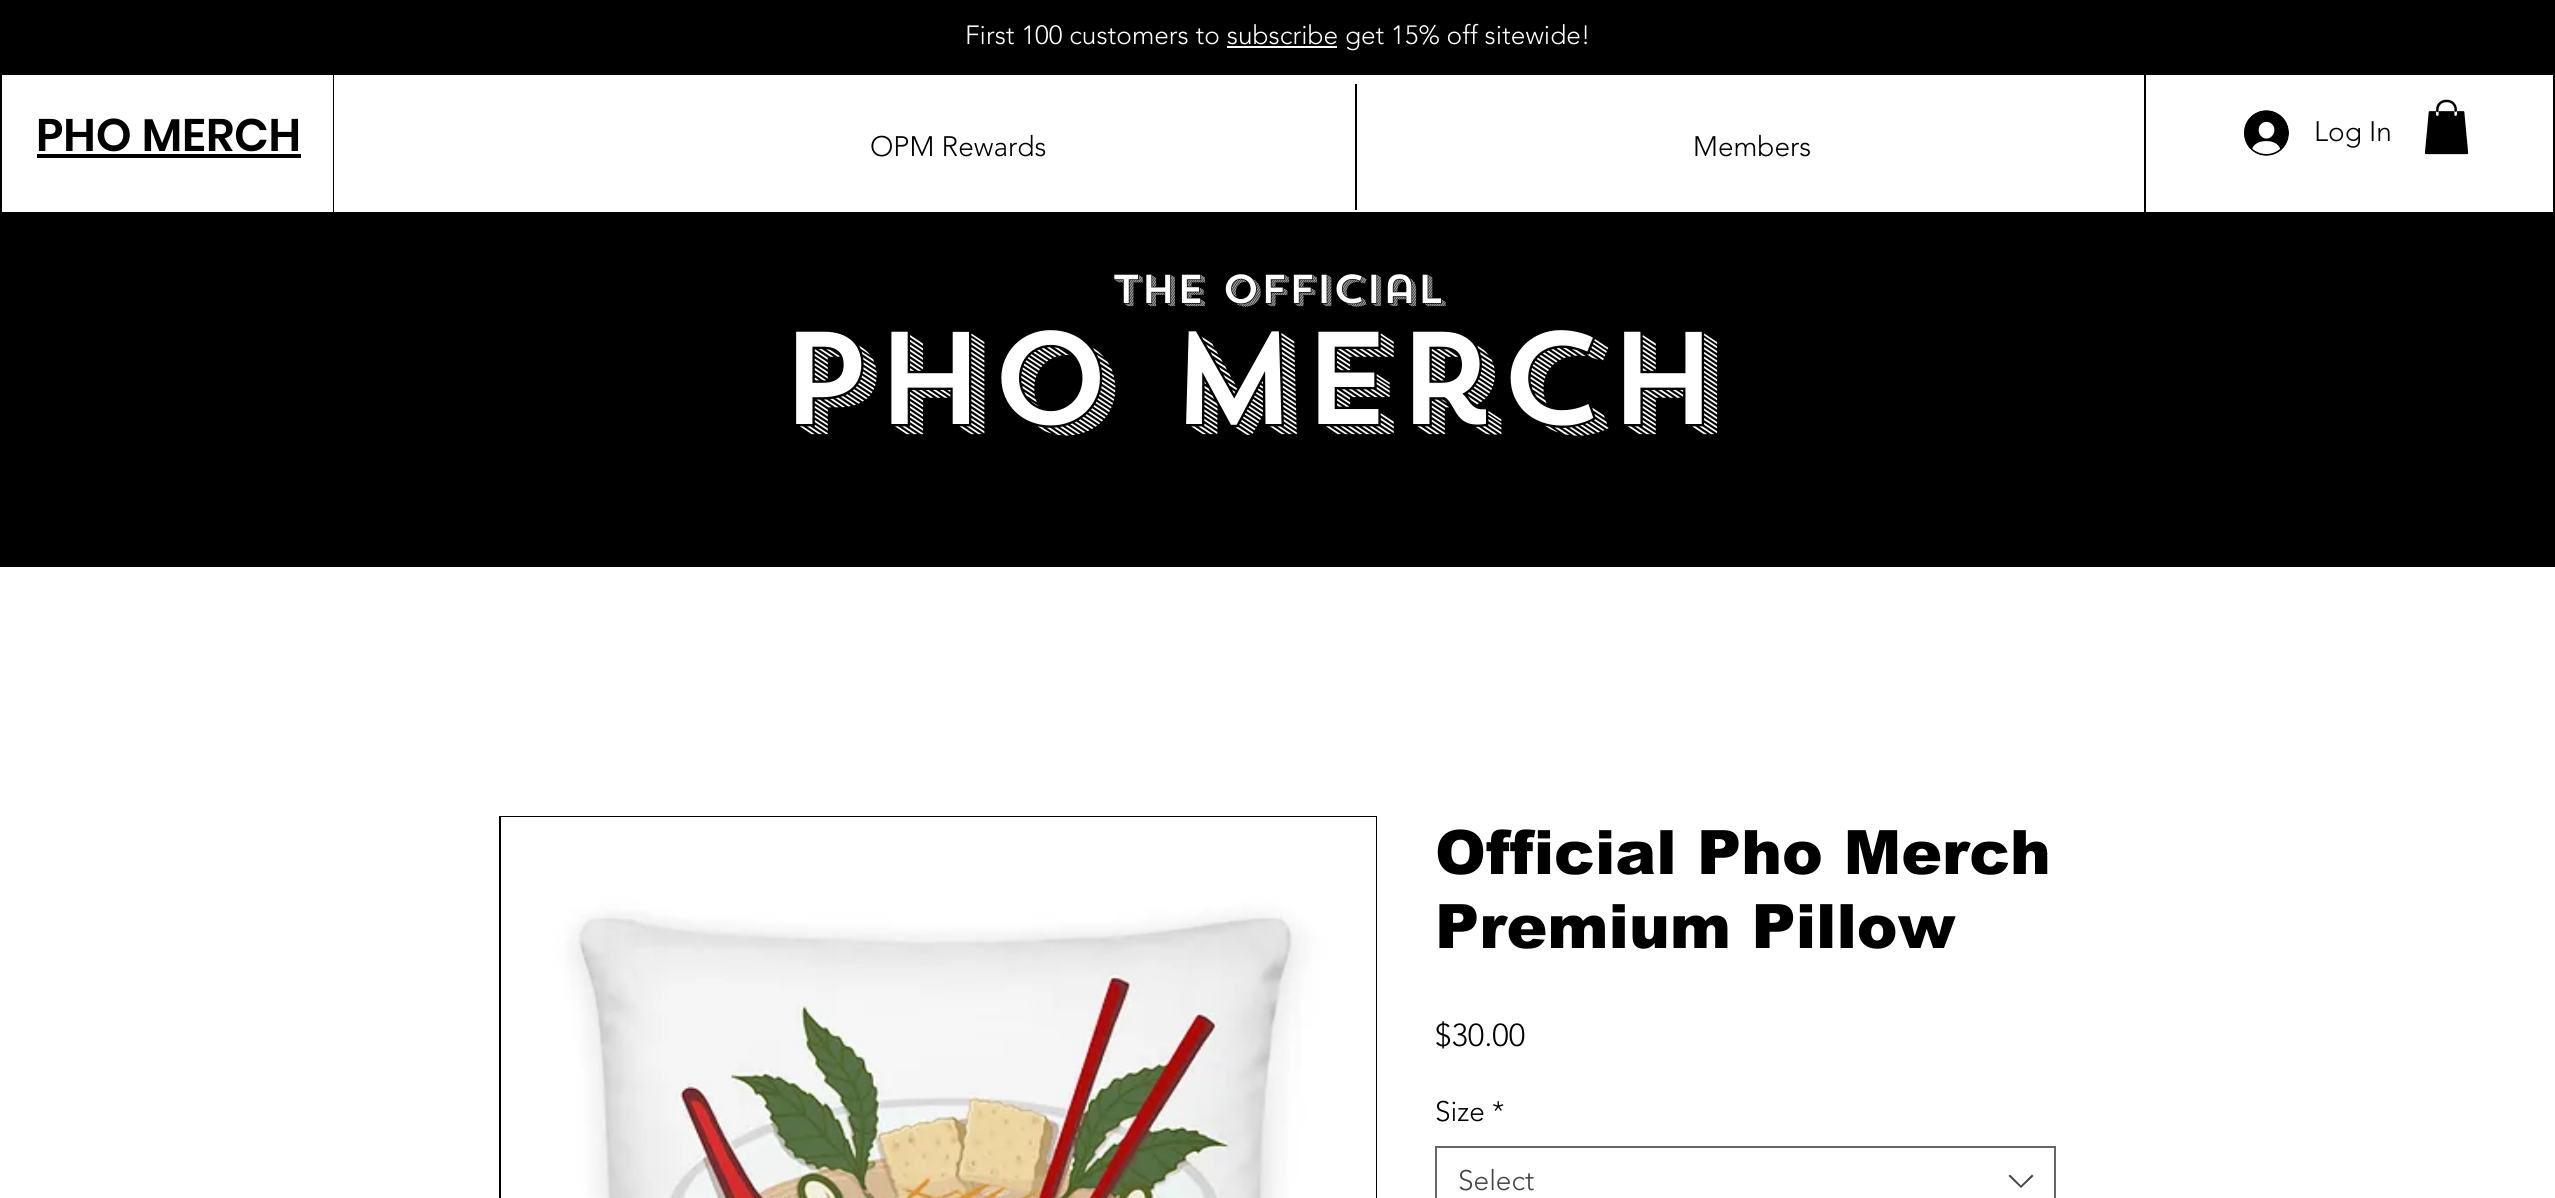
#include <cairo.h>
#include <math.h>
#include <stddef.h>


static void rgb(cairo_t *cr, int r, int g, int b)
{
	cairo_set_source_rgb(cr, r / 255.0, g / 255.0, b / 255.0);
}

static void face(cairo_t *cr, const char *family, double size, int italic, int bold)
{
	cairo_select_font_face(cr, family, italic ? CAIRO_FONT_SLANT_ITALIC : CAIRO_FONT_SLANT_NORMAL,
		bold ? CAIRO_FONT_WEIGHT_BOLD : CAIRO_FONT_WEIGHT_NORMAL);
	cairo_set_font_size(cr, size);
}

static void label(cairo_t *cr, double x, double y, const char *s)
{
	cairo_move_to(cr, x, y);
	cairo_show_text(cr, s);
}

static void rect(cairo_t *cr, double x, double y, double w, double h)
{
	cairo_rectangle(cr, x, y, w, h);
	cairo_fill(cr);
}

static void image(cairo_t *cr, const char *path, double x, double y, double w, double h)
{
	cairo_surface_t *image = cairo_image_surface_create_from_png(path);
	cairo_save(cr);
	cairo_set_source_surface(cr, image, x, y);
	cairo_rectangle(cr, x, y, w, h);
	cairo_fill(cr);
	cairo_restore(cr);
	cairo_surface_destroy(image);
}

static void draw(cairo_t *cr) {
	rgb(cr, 255, 255, 255);
	cairo_paint(cr);
	rgb(cr, 0, 0, 0);
	rect(cr, 0, 0, 2555, 567);
	face(cr, "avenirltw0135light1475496 Light", 26.25, 0, 0);
	rgb(cr, 255, 255, 255);
	label(cr, 965, 44, "First 100 customers to subscribe get 15% off sitewide!");
	rect(cr, 1227, 46, 110, 2);
	rect(cr, 2, 75, 331, 137);
	face(cr, "Poppins SemiBold", 45.5, 0, 0);
	rgb(cr, 0, 0, 0);
	label(cr, 36, 151, "PHO MERCH");
	rect(cr, 37, 154, 264, 4);
	rgb(cr, 255, 255, 255);
	rect(cr, 334, 75, 1810, 137);
	face(cr, "avenirltw0135light1475496 Light", 28, 0, 0);
	rgb(cr, 0, 0, 0);
	label(cr, 870, 156, "OPM Rewards");
	rect(cr, 1355, 84, 2, 126);
	label(cr, 1693, 156, "Members");
	rgb(cr, 255, 255, 255);
	rect(cr, 2146, 75, 407, 137);
	image(cr, "image0.png", 2244, 110, 45, 46);
	rgb(cr, 0, 0, 0);
	label(cr, 2314, 141, "Log In");
	image(cr, "image1.png", 2424, 99, 45, 56);
	face(cr, "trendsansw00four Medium", 40.25, 0, 0);
	rgb(cr, 255, 255, 255);
	label(cr, 1112, 303, "The official");
	face(cr, "trendsansw00four Medium", 131.25, 0, 0);
	label(cr, 777, 424, "Pho Merch");
	cairo_rectangle(cr, 500, 817, 876, 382);
	rgb(cr, 0, 0, 0);
	cairo_stroke(cr);
	image(cr, "image2.png", 501, 817, 875, 381);
	face(cr, "arial Black", 61.25, 0, 0);
	label(cr, 1435, 874, "Official Pho Merch");
	label(cr, 1435, 948, "Premium Pillow");
	face(cr, "avenirltw0135light1475496 Light", 31.5, 0, 0);
	label(cr, 1435, 1046, "$30.00");
	face(cr, "avenirltw0135light1475496 Light", 28, 0, 0);
	label(cr, 1435, 1121, "Size *");
	cairo_rectangle(cr, 1436, 1147, 619, 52);
	rgb(cr, 102, 102, 102);
	cairo_stroke(cr);
	rgb(cr, 68, 68, 68);
	label(cr, 1458, 1190, "Select");
	cairo_set_fill_rule(cr, CAIRO_FILL_RULE_EVEN_ODD);
	cairo_new_path(cr);
	cairo_move_to(cr, 2032, 1174.5);
	cairo_line_to(cr, 2033.5, 1176);
	cairo_line_to(cr, 2021, 1188);
	cairo_line_to(cr, 2008.5, 1176);
	cairo_line_to(cr, 2010, 1174.5);
	cairo_line_to(cr, 2021, 1185.5);
	cairo_close_path(cr);
	cairo_fill(cr);
}

int main(void) {
	cairo_surface_t *surface = cairo_image_surface_create(CAIRO_FORMAT_RGB24, 2555, 1198);
	cairo_t *cr = cairo_create(surface);
	cairo_font_options_t *options = cairo_font_options_create();
	cairo_font_options_set_hint_metrics(options, CAIRO_HINT_METRICS_OFF);
	cairo_font_options_set_hint_style(options, CAIRO_HINT_STYLE_NONE);
	cairo_set_font_options(cr, options);
	cairo_set_miter_limit(cr, 4);
	draw(cr);
	cairo_surface_write_to_png(surface, "render.png");
	cairo_font_options_destroy(options);
	cairo_destroy(cr);
	cairo_surface_destroy(surface);
	return 0;
}
